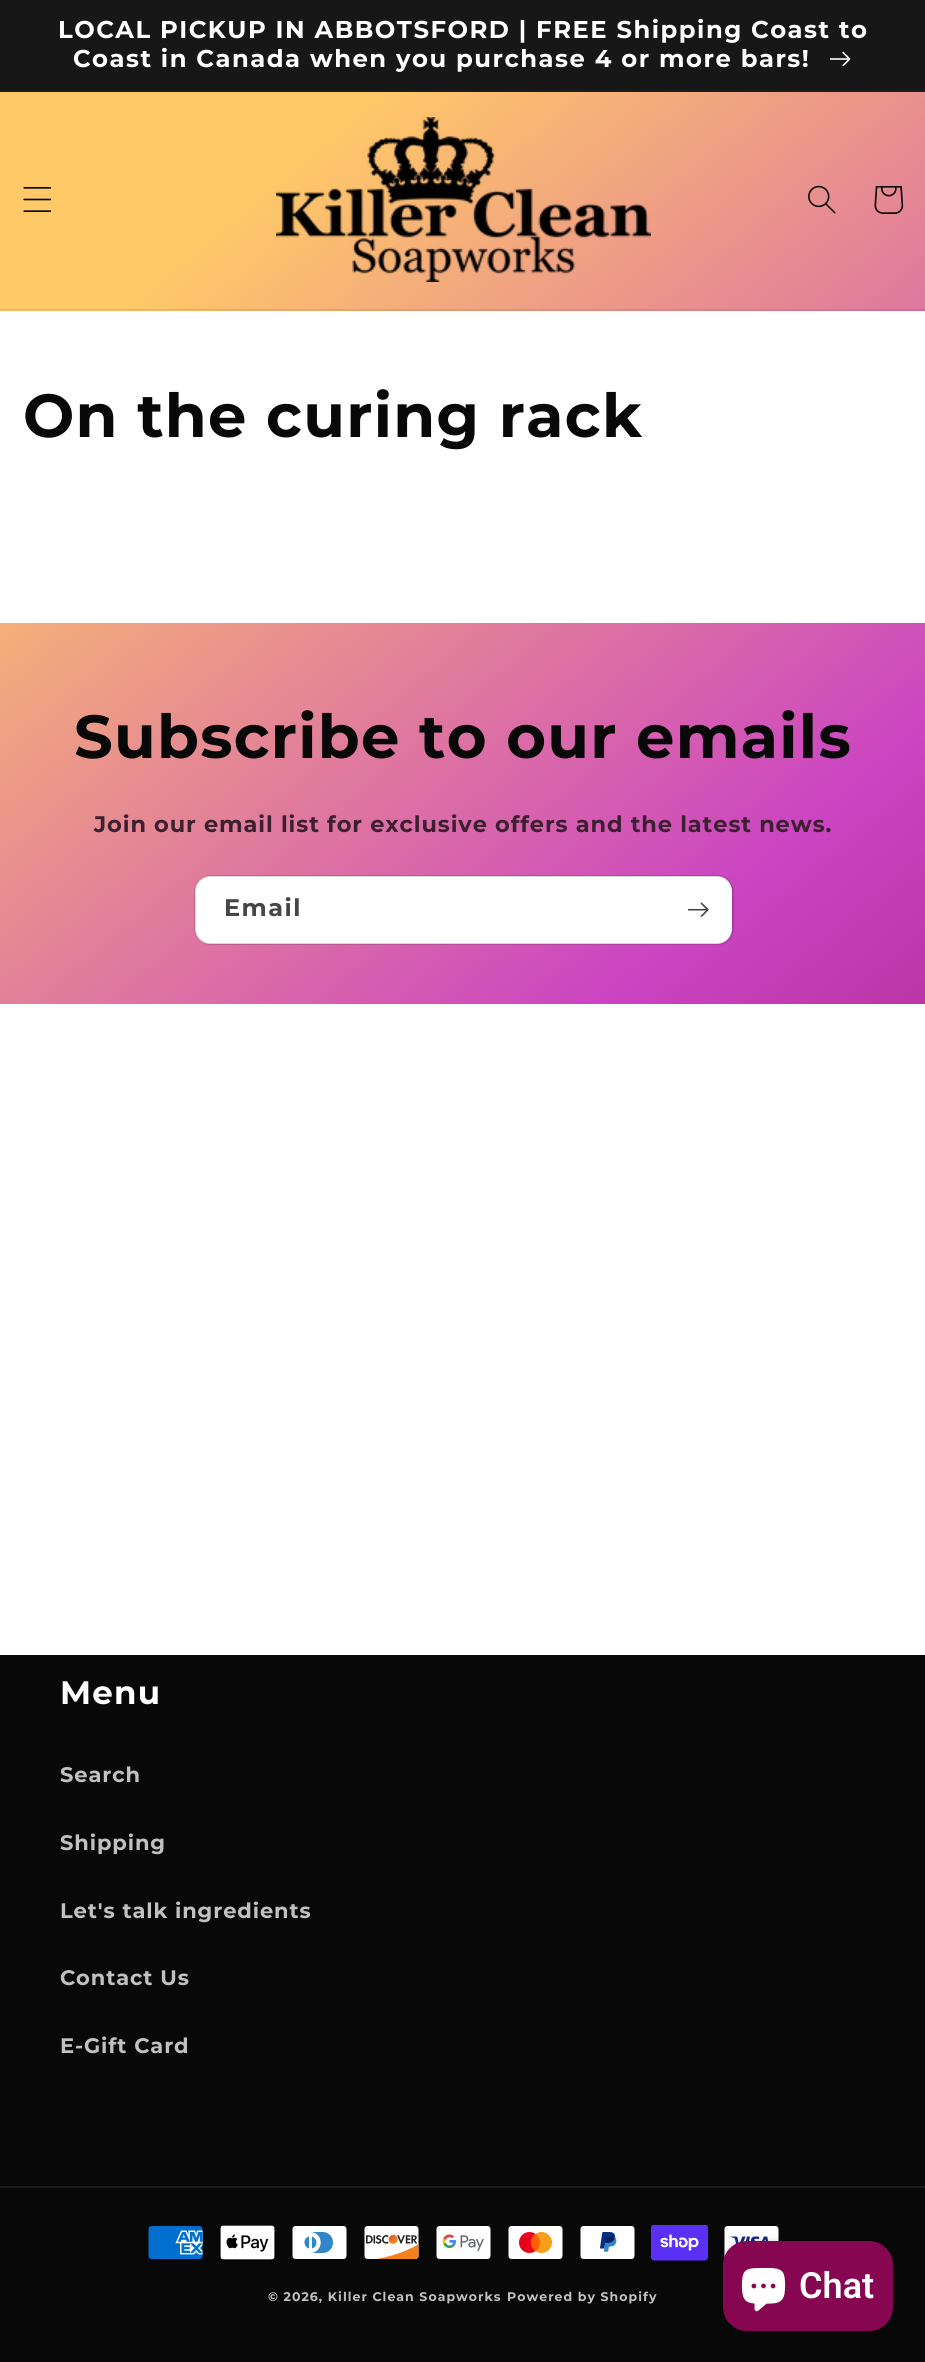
#include <cairo.h>
#include <math.h>
#include <stddef.h>


static void rgb(cairo_t *cr, int r, int g, int b)
{
	cairo_set_source_rgb(cr, r / 255.0, g / 255.0, b / 255.0);
}

static void face(cairo_t *cr, const char *family, double size, int italic, int bold)
{
	cairo_select_font_face(cr, family, italic ? CAIRO_FONT_SLANT_ITALIC : CAIRO_FONT_SLANT_NORMAL,
		bold ? CAIRO_FONT_WEIGHT_BOLD : CAIRO_FONT_WEIGHT_NORMAL);
	cairo_set_font_size(cr, size);
}

static void label(cairo_t *cr, double x, double y, const char *s)
{
	cairo_move_to(cr, x, y);
	cairo_show_text(cr, s);
}

static void tracked(cairo_t *cr, double x, double y, const char *s, double letter, double word)
{
	cairo_move_to(cr, x, y);
	while (*s) {
		char ch[5] = {0};
		int n = 0;
		do ch[n++] = *s++; while ((*s & 0xC0) == 0x80);
		cairo_show_text(cr, ch);
		cairo_rel_move_to(cr, letter + word * (*ch == ' '), 0);
	}
}

static void rect(cairo_t *cr, double x, double y, double w, double h)
{
	cairo_rectangle(cr, x, y, w, h);
	cairo_fill(cr);
}

static void rrect(cairo_t *cr, double x, double y, double w, double h, double r)
{
	cairo_new_sub_path(cr);
	cairo_arc(cr, x + w - r, y + h - r, r, 0, M_PI / 2);
	cairo_arc(cr, x + r, y + h - r, r, M_PI / 2, M_PI);
	cairo_arc(cr, x + r, y + r, r, M_PI, 1.5 * M_PI);
	cairo_arc(cr, x + w - r, y + r, r, 1.5 * M_PI, 2 * M_PI);
	cairo_close_path(cr);
}

static void soft_shadow(cairo_t *cr, double x, double y, double w, double h, double r, double blur, double alpha)
{
	cairo_push_group_with_content(cr, CAIRO_CONTENT_ALPHA);
	cairo_set_operator(cr, CAIRO_OPERATOR_SOURCE);
	for (int i = 15; i >= -15 && fmin(w, h) + blur * i / 3 > 0; i -= 2) {
		double e = blur * i / 6;
		cairo_set_source_rgba(cr, 0, 0, 0, alpha * erfc((i - 1) / 8.5) / 2);
		rrect(cr, x - e, y - e, w + 2 * e, h + 2 * e, fmax(0, fmin(r + e + blur * .6, fmin(w, h) / 2 + e)));
		cairo_fill(cr);
	}
	cairo_pattern_t *soft = cairo_pop_group(cr);
	cairo_mask(cr, soft);
	cairo_pattern_destroy(soft);
}

static void image(cairo_t *cr, const char *path, double x, double y, double w, double h)
{
	cairo_surface_t *image = cairo_image_surface_create_from_png(path);
	cairo_save(cr);
	cairo_set_source_surface(cr, image, x, y);
	cairo_rectangle(cr, x, y, w, h);
	cairo_fill(cr);
	cairo_restore(cr);
	cairo_surface_destroy(image);
}

static void draw(cairo_t *cr) {
	cairo_pattern_t *gradient;
	rgb(cr, 255, 255, 255);
	cairo_paint(cr);
	rgb(cr, 28, 28, 28);
	rect(cr, 0, 90, 925, 2);
	rgb(cr, 23, 23, 23);
	rect(cr, 0, 0, 925, 90);
	face(cr, "Montserrat", 24.3, 0, 1);
	rgb(cr, 255, 255, 255);
	tracked(cr, 58, 38, "LOCAL PICKUP IN ABBOTSFORD | FREE Shipping Coast to", 1.5, 0);
	tracked(cr, 73, 67, "Coast in Canada when you purchase 4 or more bars!", 1.5, 0);
	image(cr, "image0.png", 830, 51, 21, 16);
	gradient = cairo_pattern_create_linear(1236, 2102, -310, 260);
	cairo_pattern_add_color_stop_rgba(gradient, 0.16, 0.529, 0.024, 0.318, 1);
	cairo_pattern_add_color_stop_rgba(gradient, 0.52, 0.796, 0.267, 0.761, 1);
	cairo_pattern_add_color_stop_rgba(gradient, 0.87, 1, 0.788, 0.408, 1);
	cairo_set_source(cr, gradient);
	cairo_pattern_destroy(gradient);
	rect(cr, 0, 92, 925, 217);
	gradient = cairo_pattern_create_linear(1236, 2102, -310, 260);
	cairo_pattern_add_color_stop_rgba(gradient, 0.16, 0.49, 0.024, 0.294, 1);
	cairo_pattern_add_color_stop_rgba(gradient, 0.52, 0.733, 0.247, 0.702, 1);
	cairo_pattern_add_color_stop_rgba(gradient, 0.87, 0.922, 0.729, 0.376, 1);
	cairo_set_source(cr, gradient);
	cairo_pattern_destroy(gradient);
	rect(cr, 0, 309, 925, 2);
	image(cr, "image1.png", 23, 187, 29, 25);
	image(cr, "image2.png", 276, 117, 375, 165);
	image(cr, "image3.png", 808, 185, 28, 29);
	image(cr, "image4.png", 874, 186, 30, 28);
	face(cr, "Montserrat", 60.75, 0, 1);
	rgb(cr, 8, 8, 8);
	tracked(cr, 23, 437, "On the curing rack", 1.25, 0);
	gradient = cairo_pattern_create_linear(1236, 2102, -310, 260);
	cairo_pattern_add_color_stop_rgba(gradient, 0.16, 0.529, 0.024, 0.318, 1);
	cairo_pattern_add_color_stop_rgba(gradient, 0.52, 0.796, 0.267, 0.761, 1);
	cairo_pattern_add_color_stop_rgba(gradient, 0.87, 1, 0.788, 0.408, 1);
	cairo_set_source(cr, gradient);
	cairo_pattern_destroy(gradient);
	rect(cr, 0, 623, 925, 381);
	rgb(cr, 8, 8, 8);
	tracked(cr, 74, 758, "Subscribe to our emails", 1.25, 0);
	face(cr, "Montserrat", 22.5, 0, 1);
	rgb(cr, 60, 32, 48);
	tracked(cr, 94, 832, "Join our email list for exclusive offers and the latest news.", 0.9, 0);
	rgb(cr, 255, 255, 255);
	rrect(cr, 195, 876, 537, 68, 15);
	cairo_fill(cr);
	rrect(cr, 195, 876, 538, 68, 16);
	cairo_set_source_rgba(cr, 0.031, 0.031, 0.031, 0.15);
	cairo_stroke(cr);
	face(cr, "Montserrat", 24, 0, 1);
	rgb(cr, 70, 70, 70);
	tracked(cr, 224, 916, "Email", 1.5, 0);
	image(cr, "image5.png", 687, 902, 22, 15);
	rgb(cr, 8, 8, 8);
	rect(cr, 0, 1655, 925, 707);
	face(cr, "Montserrat", 32.5, 0, 1);
	rgb(cr, 255, 255, 255);
	tracked(cr, 60, 1704, "Menu", 1.25, 0);
	face(cr, "Montserrat", 21, 0, 1);
	rgb(cr, 193, 193, 193);
	tracked(cr, 60, 1782, "Search", 0.9, 0);
	tracked(cr, 60, 1850, "Shipping", 0.9, 0);
	tracked(cr, 60, 1918, "Let's talk ingredients", 0.9, 0);
	tracked(cr, 60, 1985, "Contact Us", 0.9, 0);
	tracked(cr, 60, 2053, "E-Gift Card", 0.9, 0);
	rgb(cr, 28, 28, 28);
	rect(cr, 0, 2186, 925, 2);
	image(cr, "image6.png", 148, 2226, 55, 33);
	image(cr, "image7.png", 219, 2225, 57, 36);
	image(cr, "image8.png", 292, 2226, 55, 33);
	image(cr, "image9.png", 364, 2226, 55, 33);
	image(cr, "image10.png", 436, 2226, 55, 33);
	image(cr, "image11.png", 508, 2226, 55, 33);
	image(cr, "image12.png", 580, 2226, 55, 33);
	image(cr, "image13.png", 651, 2225, 57, 36);
	image(cr, "image14.png", 724, 2226, 55, 32);
	face(cr, "Montserrat", 12.5, 0, 1);
	rgb(cr, 193, 193, 193);
	tracked(cr, 268, 2301, "© 2026, Killer Clean Soapworks", 1.05, 0);
	tracked(cr, 507, 2301, "Powered by Shopify", 1.05, 0);
	rgb(cr, 0, 0, 0);
	soft_shadow(cr, 723, 2241, 170, 90, 24, 4, 0.15);
	rgb(cr, 135, 6, 81);
	rrect(cr, 723, 2241, 170, 90, 24);
	cairo_fill(cr);
	image(cr, "image15.png", 741, 2268, 45, 44);
	face(cr, "Roboto SemiBold", 36, 0, 0);
	rgb(cr, 255, 255, 255);
	label(cr, 799, 2298, "Chat");
}

int main(void) {
	cairo_surface_t *surface = cairo_image_surface_create(CAIRO_FORMAT_RGB24, 925, 2362);
	cairo_t *cr = cairo_create(surface);
	cairo_font_options_t *options = cairo_font_options_create();
	cairo_font_options_set_hint_metrics(options, CAIRO_HINT_METRICS_OFF);
	cairo_font_options_set_hint_style(options, CAIRO_HINT_STYLE_NONE);
	cairo_set_font_options(cr, options);
	cairo_set_miter_limit(cr, 4);
	draw(cr);
	cairo_surface_write_to_png(surface, "render.png");
	cairo_font_options_destroy(options);
	cairo_destroy(cr);
	cairo_surface_destroy(surface);
	return 0;
}
